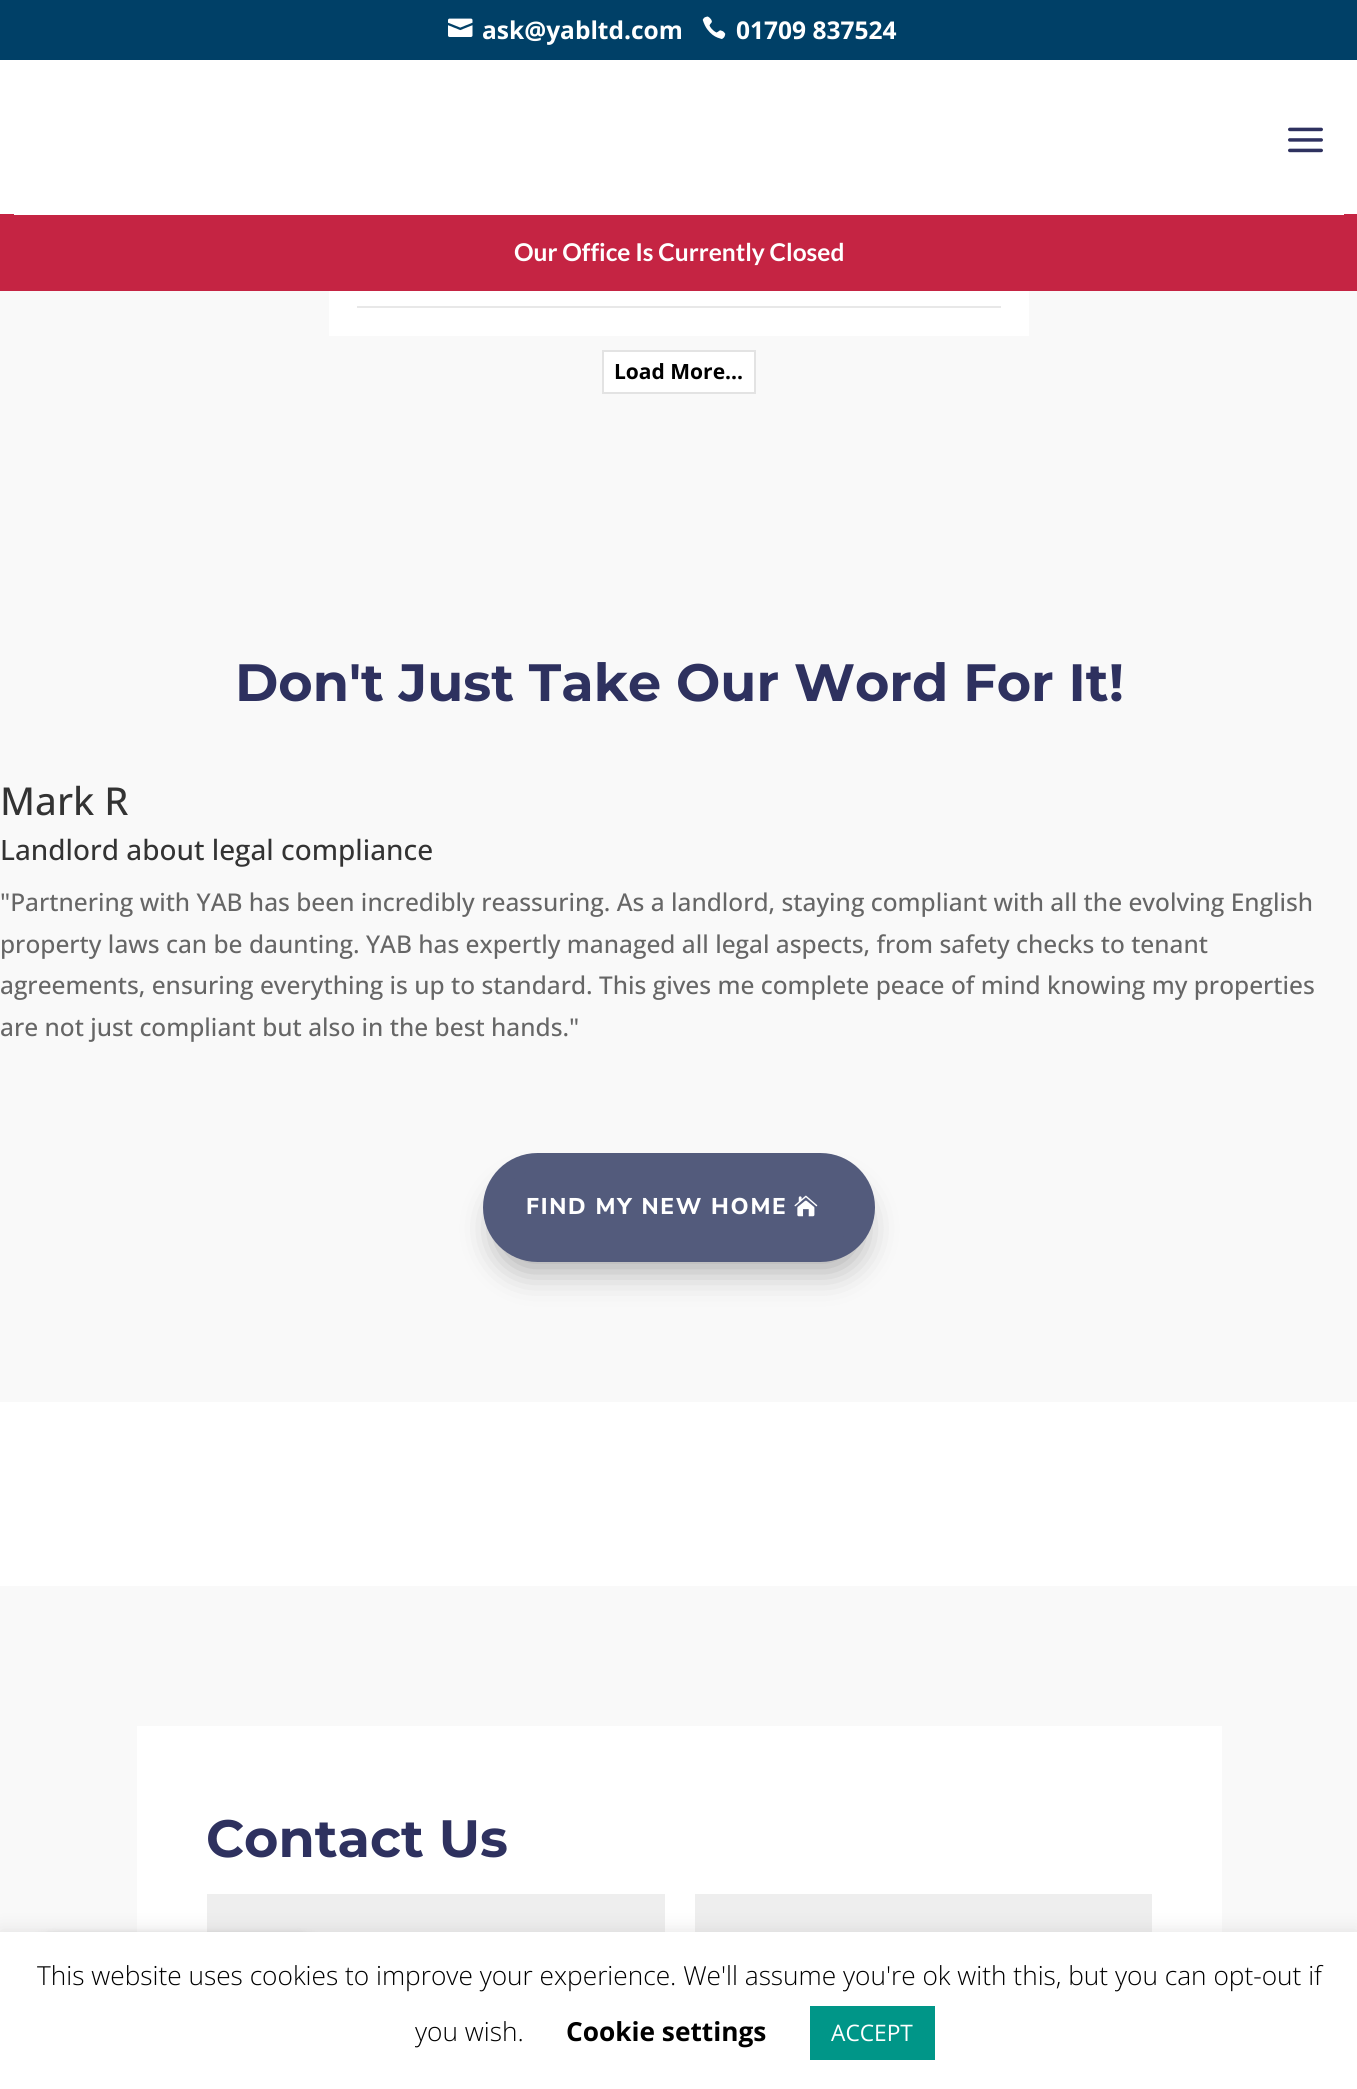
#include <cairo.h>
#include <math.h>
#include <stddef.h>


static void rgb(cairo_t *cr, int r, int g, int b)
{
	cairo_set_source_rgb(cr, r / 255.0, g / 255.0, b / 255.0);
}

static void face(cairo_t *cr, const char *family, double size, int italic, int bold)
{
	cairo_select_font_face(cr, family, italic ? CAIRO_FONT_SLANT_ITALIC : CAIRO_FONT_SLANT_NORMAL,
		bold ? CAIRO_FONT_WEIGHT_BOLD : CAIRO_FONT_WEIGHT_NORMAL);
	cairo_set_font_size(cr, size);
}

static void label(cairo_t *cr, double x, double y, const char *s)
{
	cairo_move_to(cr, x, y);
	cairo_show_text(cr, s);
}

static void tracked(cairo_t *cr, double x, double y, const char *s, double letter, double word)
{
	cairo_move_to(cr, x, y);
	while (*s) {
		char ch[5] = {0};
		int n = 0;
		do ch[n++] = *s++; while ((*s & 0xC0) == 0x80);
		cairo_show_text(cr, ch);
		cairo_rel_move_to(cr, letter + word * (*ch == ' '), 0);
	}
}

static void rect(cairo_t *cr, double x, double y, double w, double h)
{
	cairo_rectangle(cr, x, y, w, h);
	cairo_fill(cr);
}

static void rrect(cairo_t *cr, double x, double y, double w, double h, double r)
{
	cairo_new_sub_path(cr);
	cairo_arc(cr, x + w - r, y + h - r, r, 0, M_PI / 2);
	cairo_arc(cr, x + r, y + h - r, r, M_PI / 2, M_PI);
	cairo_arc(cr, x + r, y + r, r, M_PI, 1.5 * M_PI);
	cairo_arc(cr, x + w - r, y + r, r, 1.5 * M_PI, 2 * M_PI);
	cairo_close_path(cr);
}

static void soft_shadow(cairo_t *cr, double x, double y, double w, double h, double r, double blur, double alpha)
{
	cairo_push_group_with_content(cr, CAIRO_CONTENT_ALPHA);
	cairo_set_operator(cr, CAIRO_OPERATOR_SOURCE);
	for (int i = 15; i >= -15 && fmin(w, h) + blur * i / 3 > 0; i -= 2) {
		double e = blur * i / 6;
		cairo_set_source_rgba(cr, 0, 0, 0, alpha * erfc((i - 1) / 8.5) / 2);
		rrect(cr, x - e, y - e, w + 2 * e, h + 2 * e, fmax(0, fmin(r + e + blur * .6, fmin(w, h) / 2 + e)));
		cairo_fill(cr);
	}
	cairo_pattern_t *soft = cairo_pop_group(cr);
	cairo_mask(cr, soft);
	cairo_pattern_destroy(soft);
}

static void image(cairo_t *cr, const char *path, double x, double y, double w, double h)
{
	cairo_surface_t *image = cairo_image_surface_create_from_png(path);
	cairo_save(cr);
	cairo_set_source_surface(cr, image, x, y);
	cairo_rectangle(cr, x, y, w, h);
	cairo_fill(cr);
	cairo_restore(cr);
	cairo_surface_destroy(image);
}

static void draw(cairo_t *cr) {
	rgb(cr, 255, 255, 255);
	cairo_paint(cr);
	rgb(cr, 0, 64, 103);
	rect(cr, 0, 0, 1357, 60);
	image(cr, "image0.png", 448, 18, 25, 19);
	face(cr, "Open Sans", 24.5, 0, 1);
	rgb(cr, 255, 255, 255);
	label(cr, 482, 39, "ask@yabltd.com");
	image(cr, "image1.png", 702, 16, 24, 23);
	label(cr, 736, 39, "01709 837524");
	rgb(cr, 197, 36, 67);
	rect(cr, 0, 214, 1357, 77);
	rgb(cr, 255, 255, 255);
	rect(cr, 14, 214, 1330, 1);
	image(cr, "image2.png", 1288, 127, 35, 26);
	face(cr, "Lato", 24.5, 0, 1);
	label(cr, 514, 261, "Our Office Is Currently Closed");
	rgb(cr, 249, 249, 249);
	rect(cr, 0, 291, 1357, 1111);
	rgb(cr, 255, 255, 255);
	rect(cr, 329, 291, 700, 45);
	rgb(cr, 232, 232, 232);
	rect(cr, 357, 306, 644, 2);
	rgb(cr, 255, 255, 255);
	cairo_rectangle(cr, 603, 351, 152, 42);
	cairo_fill_preserve(cr);
	rgb(cr, 227, 227, 227);
	cairo_stroke(cr);
	face(cr, "Open Sans", 21, 0, 1);
	rgb(cr, 0, 0, 0);
	label(cr, 614, 379, "Load More...");
	face(cr, "Montserrat Thin", 52.5, 0, 0);
	rgb(cr, 46, 49, 95);
	label(cr, 235, 701, "Don't Just Take Our Word For It!");
	face(cr, "Open Sans Medium", 38.5, 0, 0);
	rgb(cr, 51, 51, 51);
	label(cr, 0, 815, "Mark R");
	face(cr, "Open Sans Medium", 28, 0, 0);
	label(cr, 0, 860, "Landlord about legal compliance");
	face(cr, "Open Sans Medium", 24.5, 0, 0);
	rgb(cr, 102, 102, 102);
	label(cr, 0, 911, "\"Partnering with YAB has been incredibly reassuring. As a landlord, staying compliant with all the evolving English");
	label(cr, 0, 953, "property laws can be daunting. YAB has expertly managed all legal aspects, from safety checks to tenant");
	label(cr, 0, 994, "agreements, ensuring everything is up to standard. This gives me complete peace of mind knowing my properties");
	label(cr, 0, 1036, "are not just compliant but also in the best hands.\"");
	rgb(cr, 0, 0, 0);
	soft_shadow(cr, 494, 1185, 371, 87, 43.5, 16, 0.3);
	rgb(cr, 83, 91, 124);
	rrect(cr, 492, 1162, 374, 91, 45.5);
	cairo_fill_preserve(cr);
	cairo_set_line_width(cr, 18);
	cairo_stroke(cr);
	face(cr, "Nunito Sans ExtraLight", 22.75, 0, 0);
	rgb(cr, 255, 255, 255);
	tracked(cr, 526, 1214, "FIND MY NEW HOME", 1.75, 0);
	image(cr, "image3.png", 794, 1195, 24, 22);
	rgb(cr, 249, 249, 249);
	rect(cr, 0, 1586, 1357, 346);
	rgb(cr, 255, 255, 255);
	rect(cr, 137, 1726, 1085, 206);
	face(cr, "Montserrat Thin", 52.5, 0, 0);
	rgb(cr, 46, 49, 95);
	label(cr, 206, 1857, "Contact Us");
	rgb(cr, 238, 238, 238);
	rect(cr, 207, 1894, 458, 38);
	rect(cr, 695, 1894, 457, 38);
	rgb(cr, 0, 0, 0);
	soft_shadow(cr, -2, 1936, 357, 122, 61, 3.5, 0.48);
	rgb(cr, 172, 171, 171);
	soft_shadow(cr, 0, 1930, 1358, 158, 0, 9, 0.3);
	rgb(cr, 255, 255, 255);
	rect(cr, 0, 1932, 1357, 157);
	face(cr, "Open Sans Light", 26.25, 0, 0);
	rgb(cr, 0, 0, 0);
	label(cr, 37, 1985, "This website uses cookies to improve your experience. We'll assume you're ok with this, but you can opt-out if");
	label(cr, 415, 2041, "you wish.");
	face(cr, "Open Sans", 26.25, 0, 1);
	label(cr, 566, 2041, "Cookie settings");
	rgb(cr, 0, 150, 136);
	rect(cr, 810, 2006, 125, 54);
	face(cr, "Open Sans", 22.75, 0, 0);
	rgb(cr, 255, 255, 255);
	label(cr, 831, 2041, "ACCEPT");
}

int main(void) {
	cairo_surface_t *surface = cairo_image_surface_create(CAIRO_FORMAT_RGB24, 1357, 2089);
	cairo_t *cr = cairo_create(surface);
	cairo_font_options_t *options = cairo_font_options_create();
	cairo_font_options_set_hint_metrics(options, CAIRO_HINT_METRICS_OFF);
	cairo_font_options_set_hint_style(options, CAIRO_HINT_STYLE_NONE);
	cairo_set_font_options(cr, options);
	cairo_set_miter_limit(cr, 4);
	draw(cr);
	cairo_surface_write_to_png(surface, "render.png");
	cairo_font_options_destroy(options);
	cairo_destroy(cr);
	cairo_surface_destroy(surface);
	return 0;
}
